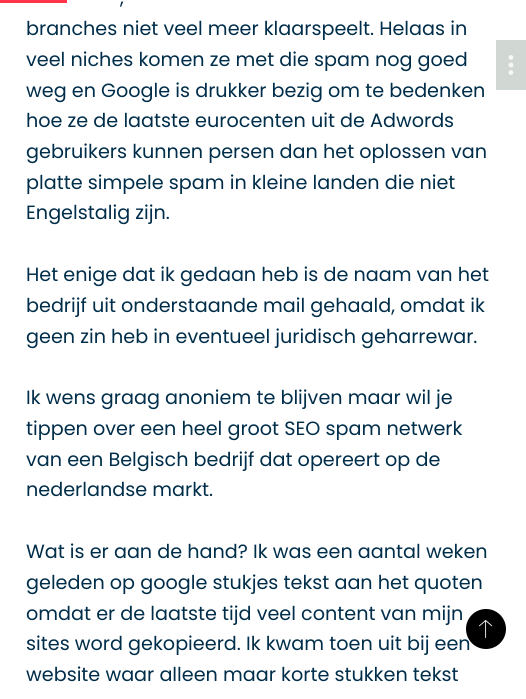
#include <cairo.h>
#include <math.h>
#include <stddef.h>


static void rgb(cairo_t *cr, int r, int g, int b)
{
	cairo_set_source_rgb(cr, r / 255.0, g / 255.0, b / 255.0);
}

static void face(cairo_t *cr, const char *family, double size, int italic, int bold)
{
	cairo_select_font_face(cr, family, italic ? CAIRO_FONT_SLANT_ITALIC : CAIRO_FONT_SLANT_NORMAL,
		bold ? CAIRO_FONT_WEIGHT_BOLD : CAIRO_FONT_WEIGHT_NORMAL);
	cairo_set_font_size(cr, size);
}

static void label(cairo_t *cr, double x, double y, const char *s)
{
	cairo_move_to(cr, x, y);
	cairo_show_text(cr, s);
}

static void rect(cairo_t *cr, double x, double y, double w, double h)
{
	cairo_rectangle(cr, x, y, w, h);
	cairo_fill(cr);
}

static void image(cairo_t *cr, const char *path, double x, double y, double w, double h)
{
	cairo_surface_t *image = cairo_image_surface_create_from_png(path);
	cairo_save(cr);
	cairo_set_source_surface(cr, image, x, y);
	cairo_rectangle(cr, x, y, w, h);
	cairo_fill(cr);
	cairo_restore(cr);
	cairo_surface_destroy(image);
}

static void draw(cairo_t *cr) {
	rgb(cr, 255, 255, 255);
	cairo_paint(cr);
	rgb(cr, 255, 51, 73);
	rect(cr, 0, 0, 67, 3);
	face(cr, "Poppins", 19.2, 0, 0);
	rgb(cr, 0, 45, 73);
	label(cr, 120, 4, ",");
	label(cr, 26, 35, "branches niet veel meer klaarspeelt. Helaas in");
	label(cr, 26, 66, "veel niches komen ze met die spam nog goed");
	label(cr, 26, 97, "weg en Google is drukker bezig om te bedenken");
	label(cr, 26, 127, "hoe ze de laatste eurocenten uit de Adwords");
	label(cr, 26, 158, "gebruikers kunnen persen dan het oplossen van");
	label(cr, 26, 189, "platte simpele spam in kleine landen die niet");
	label(cr, 26, 219, "Engelstalig zijn.");
	rgb(cr, 209, 215, 210);
	rect(cr, 496, 40, 30, 50);
	image(cr, "image0.png", 508, 55, 6, 20);
	rgb(cr, 0, 45, 73);
	label(cr, 26, 281, "Het enige dat ik gedaan heb is de naam van het");
	label(cr, 26, 312, "bedrijf uit onderstaande mail gehaald, omdat ik");
	label(cr, 26, 343, "geen zin heb in eventueel juridisch geharrewar.");
	label(cr, 26, 404, "Ik wens graag anoniem te blijven maar wil je");
	label(cr, 26, 435, "tippen over een heel groot SEO spam netwerk");
	label(cr, 26, 466, "van een Belgisch bedrijf dat opereert op de");
	label(cr, 26, 496, "nederlandse markt.");
	label(cr, 26, 558, "Wat is er aan de hand? Ik was een aantal weken");
	label(cr, 26, 589, "geleden op google stukjes tekst aan het quoten");
	label(cr, 26, 620, "omdat er de laatste tijd veel content van mijn");
	label(cr, 26, 650, "sites word gekopieerd. Ik kwam toen uit bij een");
	label(cr, 26, 681, "website waar alleen maar korte stukken tekst");
	rgb(cr, 0, 0, 0);
	cairo_new_path(cr);
	cairo_arc(cr, 486, 629, 20, 0, 2 * M_PI);
	cairo_fill(cr);
	image(cr, "image1.png", 479, 620, 14, 18);
}

int main(void) {
	cairo_surface_t *surface = cairo_image_surface_create(CAIRO_FORMAT_RGB24, 526, 699);
	cairo_t *cr = cairo_create(surface);
	cairo_font_options_t *options = cairo_font_options_create();
	cairo_font_options_set_hint_metrics(options, CAIRO_HINT_METRICS_OFF);
	cairo_font_options_set_hint_style(options, CAIRO_HINT_STYLE_NONE);
	cairo_set_font_options(cr, options);
	cairo_set_miter_limit(cr, 4);
	draw(cr);
	cairo_surface_write_to_png(surface, "render.png");
	cairo_font_options_destroy(options);
	cairo_destroy(cr);
	cairo_surface_destroy(surface);
	return 0;
}
